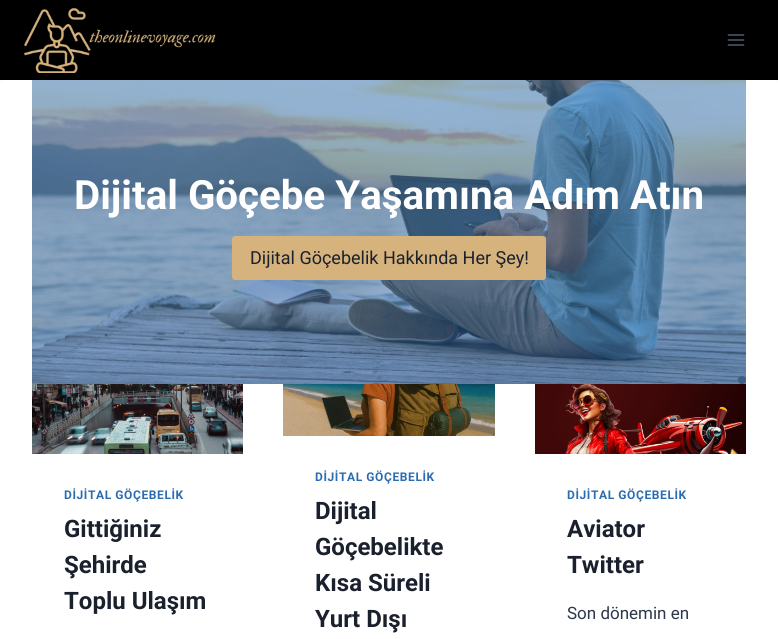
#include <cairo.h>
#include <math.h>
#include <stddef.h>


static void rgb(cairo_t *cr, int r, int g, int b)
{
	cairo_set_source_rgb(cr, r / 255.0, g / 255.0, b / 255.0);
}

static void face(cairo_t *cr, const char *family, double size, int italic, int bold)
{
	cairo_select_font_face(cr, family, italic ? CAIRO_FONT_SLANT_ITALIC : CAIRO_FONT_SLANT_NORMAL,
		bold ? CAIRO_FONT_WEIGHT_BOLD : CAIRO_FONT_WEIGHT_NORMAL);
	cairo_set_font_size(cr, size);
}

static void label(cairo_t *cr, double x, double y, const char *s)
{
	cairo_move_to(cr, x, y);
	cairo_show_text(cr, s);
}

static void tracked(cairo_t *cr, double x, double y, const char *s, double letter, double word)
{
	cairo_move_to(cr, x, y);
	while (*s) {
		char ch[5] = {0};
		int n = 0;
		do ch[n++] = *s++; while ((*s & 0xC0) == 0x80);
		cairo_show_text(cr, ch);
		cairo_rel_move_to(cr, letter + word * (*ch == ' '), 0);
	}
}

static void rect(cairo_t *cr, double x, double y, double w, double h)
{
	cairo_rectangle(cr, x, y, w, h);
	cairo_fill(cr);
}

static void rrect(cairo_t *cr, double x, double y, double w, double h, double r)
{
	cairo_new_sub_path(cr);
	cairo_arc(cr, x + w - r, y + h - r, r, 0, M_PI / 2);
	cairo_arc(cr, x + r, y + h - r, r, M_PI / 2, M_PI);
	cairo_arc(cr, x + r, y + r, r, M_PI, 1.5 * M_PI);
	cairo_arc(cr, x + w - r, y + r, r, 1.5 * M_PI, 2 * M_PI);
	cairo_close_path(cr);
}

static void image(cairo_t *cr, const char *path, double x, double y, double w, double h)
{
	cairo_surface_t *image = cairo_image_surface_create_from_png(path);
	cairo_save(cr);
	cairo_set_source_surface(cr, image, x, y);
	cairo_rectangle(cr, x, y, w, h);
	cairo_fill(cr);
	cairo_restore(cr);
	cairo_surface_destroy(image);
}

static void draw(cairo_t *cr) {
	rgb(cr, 247, 250, 252);
	cairo_paint(cr);
	rgb(cr, 0, 0, 0);
	rect(cr, 0, 0, 778, 80);
	image(cr, "image0.png", 24, 8, 192, 65);
	image(cr, "image1.png", 727, 34, 18, 12);
	rgb(cr, 255, 255, 255);
	rrect(cr, 0, 80, 778, 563, 4);
	cairo_fill(cr);
	image(cr, "image2.png", 32, 80, 714, 304);
	face(cr, "Roboto", 40.3, 0, 1);
	rgb(cr, 254, 254, 254);
	label(cr, 74, 209, "Dijital Göçebe Yaşamına Adım Atın");
	rgb(cr, 214, 178, 124);
	rrect(cr, 232, 236, 314, 44, 3);
	cairo_fill(cr);
	face(cr, "Roboto", 18, 0, 0);
	rgb(cr, 26, 32, 44);
	label(cr, 250, 264, "Dijital Göçebelik Hakkında Her Şey!");
	image(cr, "image3.png", 32, 384, 211, 70);
	face(cr, "Roboto", 12, 0, 1);
	rgb(cr, 43, 108, 176);
	tracked(cr, 64, 499, "DİJİTAL GÖÇEBELİK", 0.6, 0);
	face(cr, "Roboto", 24, 0, 1);
	rgb(cr, 26, 32, 44);
	label(cr, 64, 537, "Gittiğiniz");
	label(cr, 64, 573, "Şehirde");
	label(cr, 64, 609, "Toplu Ulaşım");
	image(cr, "image4.png", 283, 384, 212, 52);
	face(cr, "Roboto", 12, 0, 1);
	rgb(cr, 43, 108, 176);
	tracked(cr, 315, 481, "DİJİTAL GÖÇEBELİK", 0.6, 0);
	face(cr, "Roboto", 24, 0, 1);
	rgb(cr, 26, 32, 44);
	label(cr, 315, 519, "Dijital");
	label(cr, 315, 555, "Göçebelikte");
	label(cr, 315, 591, "Kısa Süreli");
	label(cr, 315, 627, "Yurt Dışı");
	image(cr, "image5.png", 535, 384, 211, 70);
	face(cr, "Roboto", 12, 0, 1);
	rgb(cr, 43, 108, 176);
	tracked(cr, 567, 499, "DİJİTAL GÖÇEBELİK", 0.6, 0);
	face(cr, "Roboto", 24, 0, 1);
	rgb(cr, 26, 32, 44);
	label(cr, 567, 537, "Aviator");
	label(cr, 567, 573, "Twitter");
	face(cr, "Roboto", 17, 0, 0);
	rgb(cr, 45, 55, 72);
	label(cr, 567, 619, "Son dönemin en");
}

int main(void) {
	cairo_surface_t *surface = cairo_image_surface_create(CAIRO_FORMAT_RGB24, 778, 639);
	cairo_t *cr = cairo_create(surface);
	cairo_font_options_t *options = cairo_font_options_create();
	cairo_font_options_set_hint_metrics(options, CAIRO_HINT_METRICS_OFF);
	cairo_font_options_set_hint_style(options, CAIRO_HINT_STYLE_NONE);
	cairo_set_font_options(cr, options);
	cairo_set_miter_limit(cr, 4);
	draw(cr);
	cairo_surface_write_to_png(surface, "render.png");
	cairo_font_options_destroy(options);
	cairo_destroy(cr);
	cairo_surface_destroy(surface);
	return 0;
}
